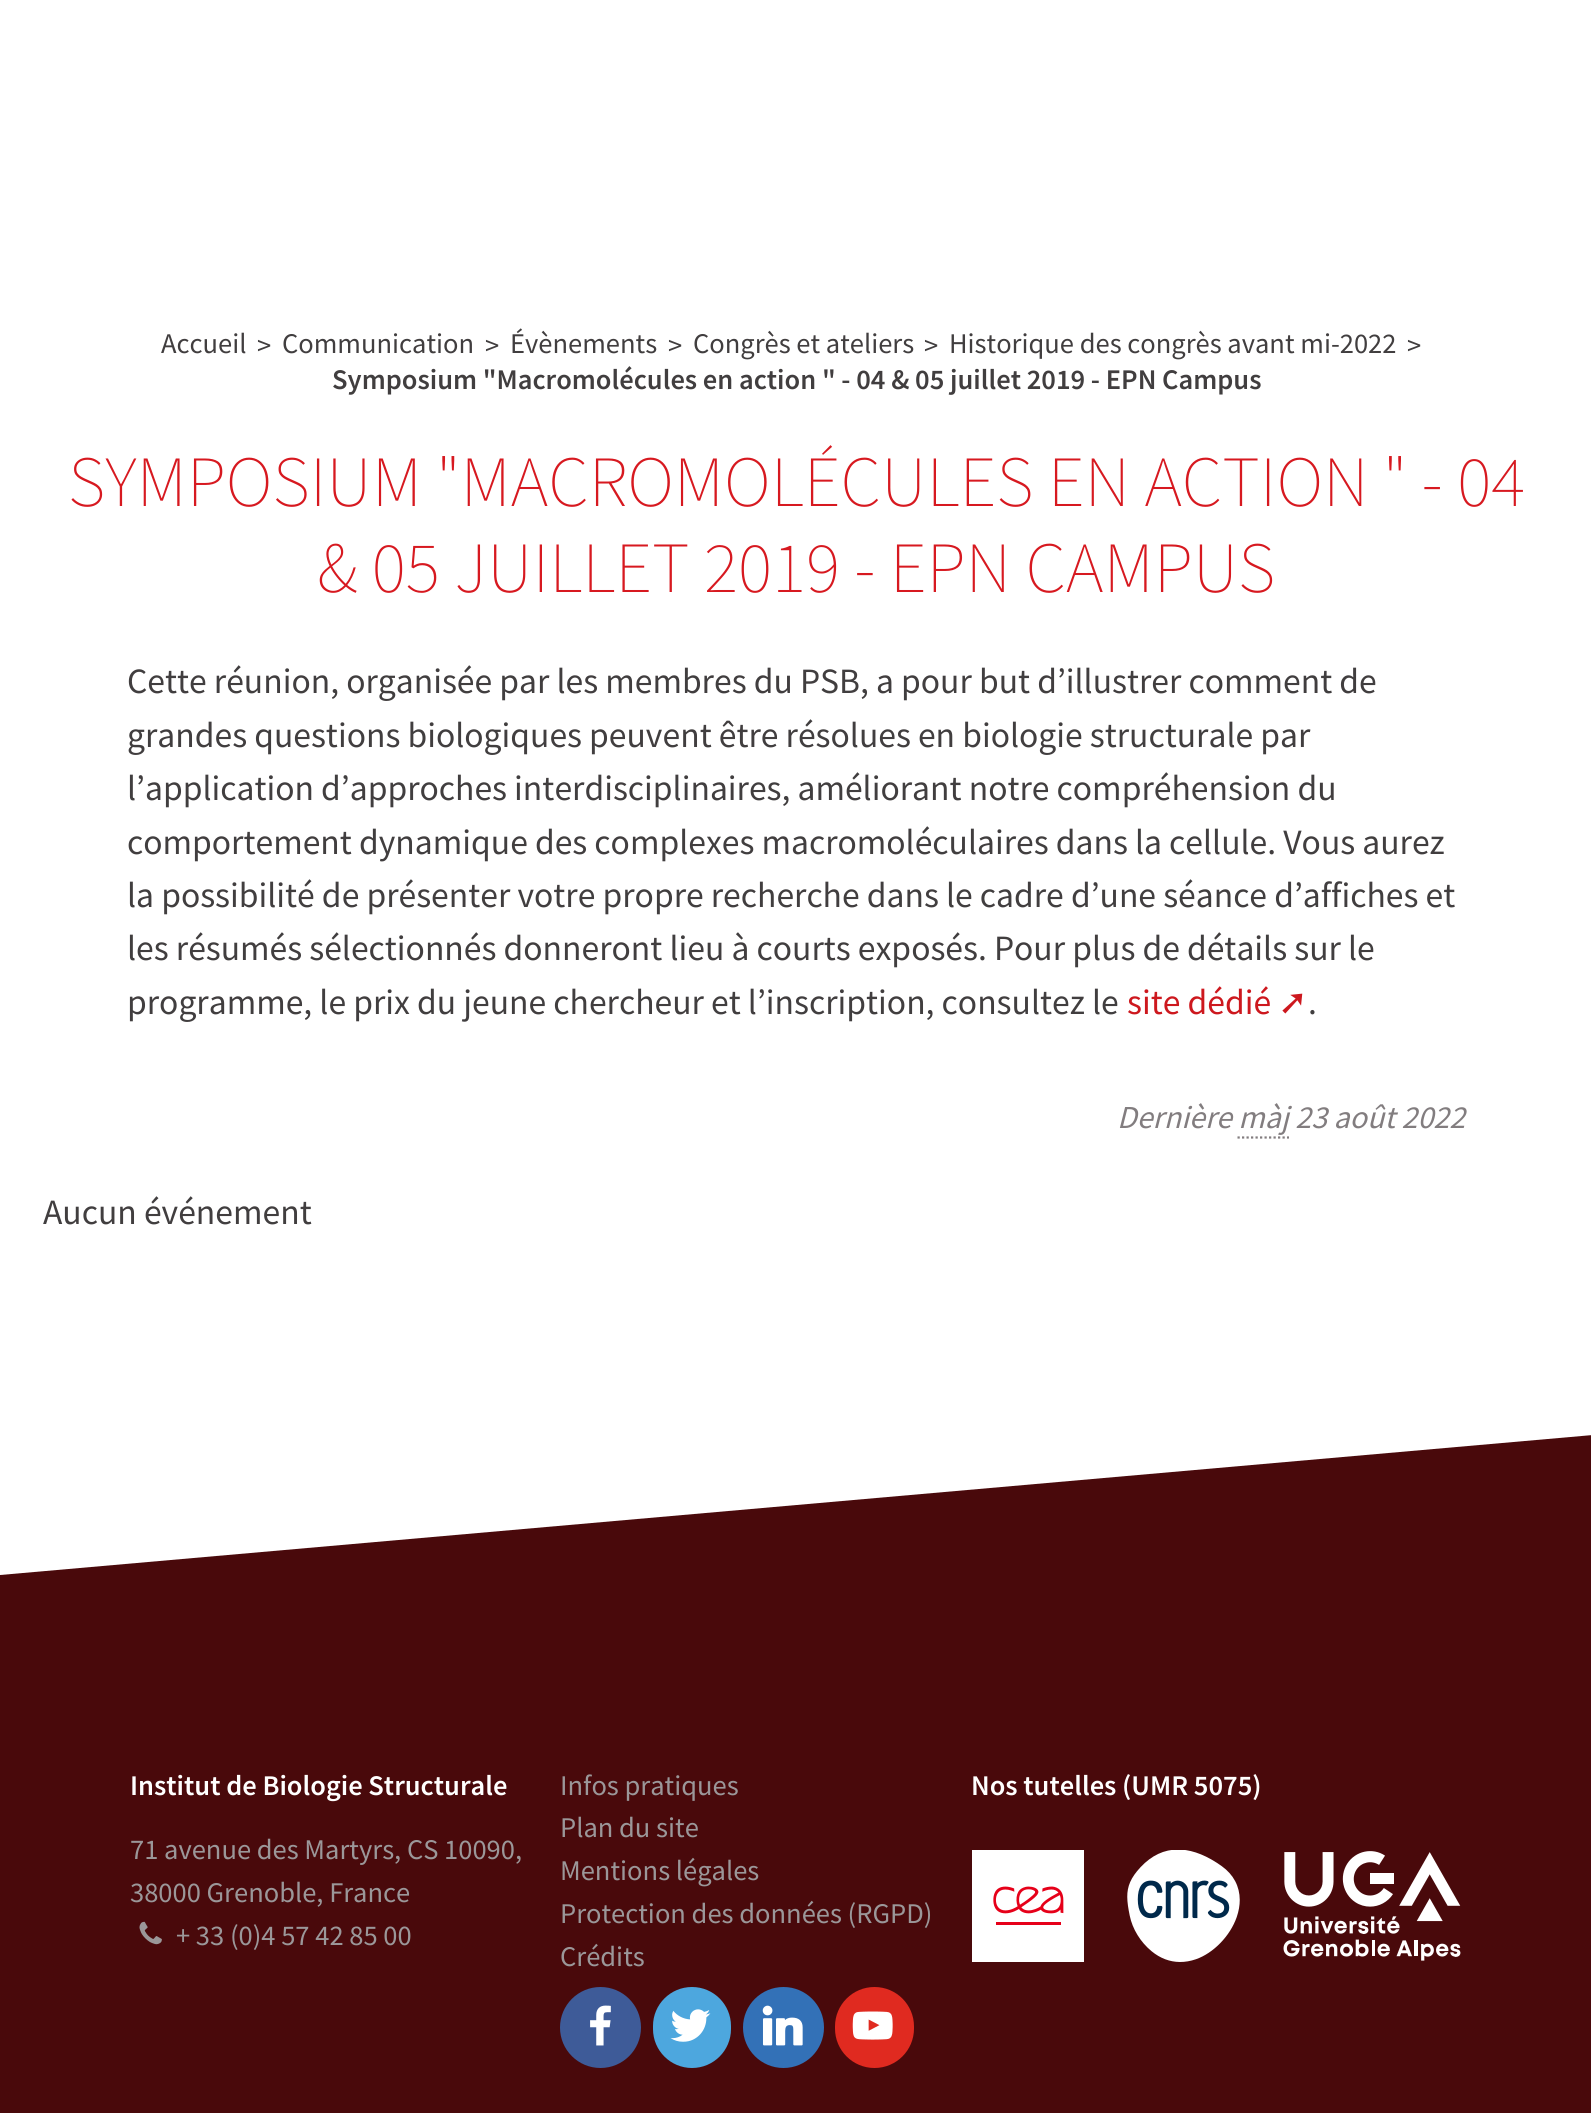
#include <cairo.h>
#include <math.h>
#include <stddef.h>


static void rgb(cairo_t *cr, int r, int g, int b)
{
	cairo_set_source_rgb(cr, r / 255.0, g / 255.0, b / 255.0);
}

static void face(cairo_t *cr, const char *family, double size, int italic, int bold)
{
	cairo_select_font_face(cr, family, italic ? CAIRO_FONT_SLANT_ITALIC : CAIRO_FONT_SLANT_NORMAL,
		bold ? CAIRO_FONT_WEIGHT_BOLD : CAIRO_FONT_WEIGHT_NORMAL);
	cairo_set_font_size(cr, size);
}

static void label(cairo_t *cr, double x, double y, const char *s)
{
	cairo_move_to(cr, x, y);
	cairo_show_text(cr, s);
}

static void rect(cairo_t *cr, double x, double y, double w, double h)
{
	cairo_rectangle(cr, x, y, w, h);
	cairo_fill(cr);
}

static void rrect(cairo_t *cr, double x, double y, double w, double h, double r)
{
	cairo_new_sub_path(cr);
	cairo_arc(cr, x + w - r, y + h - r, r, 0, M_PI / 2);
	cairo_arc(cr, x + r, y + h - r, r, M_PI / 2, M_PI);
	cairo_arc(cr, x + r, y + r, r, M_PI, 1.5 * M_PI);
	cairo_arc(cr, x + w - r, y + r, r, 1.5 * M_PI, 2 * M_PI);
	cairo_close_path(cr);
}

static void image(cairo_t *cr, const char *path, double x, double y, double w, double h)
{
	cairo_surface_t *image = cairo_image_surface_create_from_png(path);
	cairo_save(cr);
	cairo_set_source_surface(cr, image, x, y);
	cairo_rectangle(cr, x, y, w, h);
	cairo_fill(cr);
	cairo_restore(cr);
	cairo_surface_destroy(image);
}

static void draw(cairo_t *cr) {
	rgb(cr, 255, 255, 255);
	cairo_paint(cr);
	face(cr, "Source Sans Pro", 28.5, 0, 0);
	rgb(cr, 65, 62, 63);
	label(cr, 161, 353, "Accueil");
	label(cr, 257, 355, ">");
	label(cr, 282, 353, "Communication");
	label(cr, 485, 355, ">");
	label(cr, 510, 353, "Évènements");
	label(cr, 668, 355, ">");
	label(cr, 693, 353, "Congrès et ateliers");
	label(cr, 924, 355, ">");
	label(cr, 949, 353, "Historique des congrès avant mi-2022");
	label(cr, 1407, 355, ">");
	face(cr, "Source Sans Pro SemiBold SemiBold", 28.5, 0, 0);
	label(cr, 332, 389, "Symposium \"Macromolécules en action \" - 04 & 05 juillet 2019 - EPN Campus");
	face(cr, "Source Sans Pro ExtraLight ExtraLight", 72, 0, 0);
	rgb(cr, 215, 25, 32);
	label(cr, 68, 506, "SYMPOSIUM \"MACROMOLÉCULES EN ACTION \" - 04");
	label(cr, 317, 592, "& 05 JUILLET 2019 - EPN CAMPUS");
	face(cr, "Source Sans Pro", 35.6, 0, 0);
	rgb(cr, 65, 62, 63);
	label(cr, 127, 693, "Cette réunion, organisée par les membres du PSB, a pour but d’illustrer comment de");
	label(cr, 127, 747, "grandes questions biologiques peuvent être résolues en biologie structurale par");
	label(cr, 127, 800, "l’application d’approches interdisciplinaires, améliorant notre compréhension du");
	label(cr, 127, 854, "comportement dynamique des complexes macromoléculaires dans la cellule. Vous aurez");
	label(cr, 127, 907, "la possibilité de présenter votre propre recherche dans le cadre d’une séance d’affiches et");
	label(cr, 127, 960, "les résumés sélectionnés donneront lieu à courts exposés. Pour plus de détails sur le");
	label(cr, 127, 1014, "programme, le prix du jeune chercheur et l’inscription, consultez le");
	rgb(cr, 205, 24, 30);
	label(cr, 1127, 1014, "site dédié");
	face(cr, "DejaVu Sans", 35.6, 0, 0);
	label(cr, 1278, 1014, "➚");
	face(cr, "Source Sans Pro", 35.6, 0, 0);
	rgb(cr, 65, 62, 63);
	label(cr, 1308, 1014, ".");
	face(cr, "Source Sans Pro", 32, 1, 0);
	rgb(cr, 130, 125, 127);
	label(cr, 1117, 1128, "Dernière màj 23 août 2022");
	cairo_new_path(cr);
	cairo_move_to(cr, 1237.5, 1137.5);
	cairo_line_to(cr, 1289, 1137.5);
	cairo_set_line_width(cr, 2.2);
	cairo_set_dash(cr, (double[]){2.25, 2.25}, 2, 0);
	cairo_stroke(cr);
	face(cr, "Source Sans Pro", 35.6, 0, 0);
	rgb(cr, 65, 62, 63);
	label(cr, 43, 1224, "Aucun événement");
	rgb(cr, 73, 9, 11);
	cairo_new_path(cr);
	cairo_move_to(cr, 0, 1575);
	cairo_line_to(cr, 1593, 1435);
	cairo_line_to(cr, 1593, 1880);
	cairo_line_to(cr, 0, 2020);
	cairo_close_path(cr);
	cairo_fill(cr);
	rect(cr, 0, 1880, 1591, 233);
	face(cr, "Source Sans Pro SemiBold SemiBold", 28.5, 0, 0);
	rgb(cr, 255, 255, 255);
	label(cr, 130, 1795, "Institut de Biologie Structurale");
	face(cr, "Source Sans Pro", 28.5, 0, 0);
	rgb(cr, 155, 151, 153);
	label(cr, 130, 1859, "71 avenue des Martyrs, CS 10090,");
	label(cr, 130, 1902, "38000 Grenoble, France");
	image(cr, "image0.png", 139, 1921, 23, 24);
	label(cr, 176, 1945, "+ 33 (0)4 57 42 85 00");
	label(cr, 560, 1795, "Infos pratiques");
	label(cr, 560, 1837, "Plan du site");
	label(cr, 560, 1880, "Mentions légales");
	label(cr, 560, 1923, "Protection des données (RGPD)");
	label(cr, 560, 1966, "Crédits");
	rgb(cr, 62, 91, 152);
	cairo_new_path(cr);
	cairo_arc(cr, 600.5, 2027.5, 40.5, 0, 2 * M_PI);
	cairo_fill(cr);
	image(cr, "image1.png", 590, 2005, 21, 41);
	rgb(cr, 77, 167, 222);
	rrect(cr, 653, 1987, 78, 81, 39);
	cairo_fill(cr);
	image(cr, "image2.png", 670, 2009, 41, 33);
	rgb(cr, 51, 113, 183);
	cairo_arc(cr, 783.5, 2027.5, 40.5, 0, 2 * M_PI);
	cairo_fill(cr);
	image(cr, "image3.png", 762, 2005, 41, 41);
	rgb(cr, 224, 42, 32);
	rrect(cr, 835, 1987, 79, 81, 39.5);
	cairo_fill(cr);
	image(cr, "image4.png", 852, 2011, 41, 29);
	face(cr, "Source Sans Pro SemiBold SemiBold", 28.5, 0, 0);
	rgb(cr, 255, 255, 255);
	label(cr, 971, 1795, "Nos tutelles (UMR 5075)");
	image(cr, "image5.png", 972, 1850, 112, 112);
	image(cr, "image6.png", 1127, 1850, 113, 112);
	image(cr, "image7.png", 1283, 1851, 178, 110);
}

int main(void) {
	cairo_surface_t *surface = cairo_image_surface_create(CAIRO_FORMAT_RGB24, 1591, 2113);
	cairo_t *cr = cairo_create(surface);
	cairo_font_options_t *options = cairo_font_options_create();
	cairo_font_options_set_hint_metrics(options, CAIRO_HINT_METRICS_OFF);
	cairo_font_options_set_hint_style(options, CAIRO_HINT_STYLE_NONE);
	cairo_set_font_options(cr, options);
	cairo_set_miter_limit(cr, 4);
	draw(cr);
	cairo_surface_write_to_png(surface, "render.png");
	cairo_font_options_destroy(options);
	cairo_destroy(cr);
	cairo_surface_destroy(surface);
	return 0;
}
